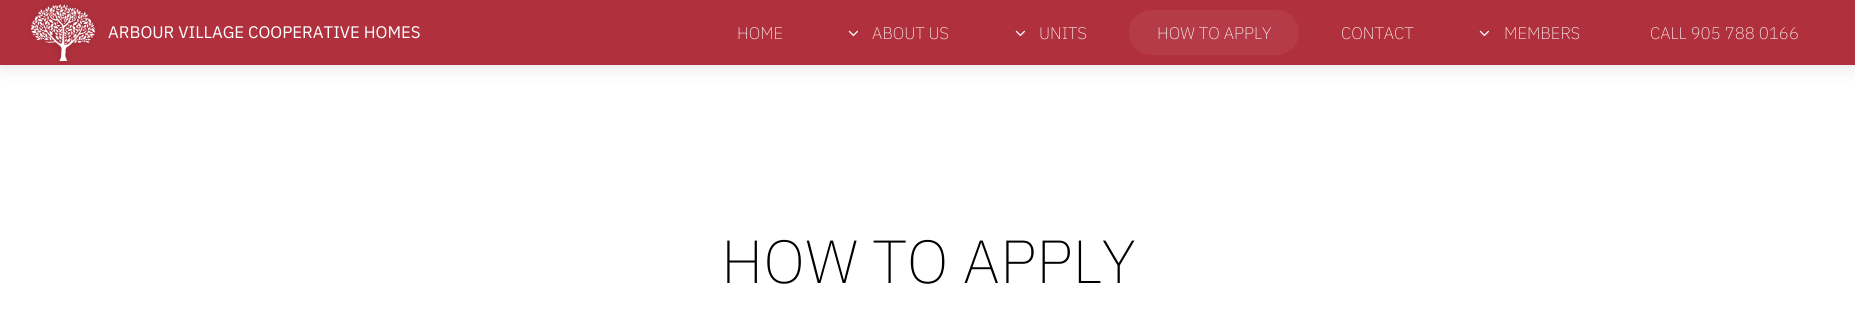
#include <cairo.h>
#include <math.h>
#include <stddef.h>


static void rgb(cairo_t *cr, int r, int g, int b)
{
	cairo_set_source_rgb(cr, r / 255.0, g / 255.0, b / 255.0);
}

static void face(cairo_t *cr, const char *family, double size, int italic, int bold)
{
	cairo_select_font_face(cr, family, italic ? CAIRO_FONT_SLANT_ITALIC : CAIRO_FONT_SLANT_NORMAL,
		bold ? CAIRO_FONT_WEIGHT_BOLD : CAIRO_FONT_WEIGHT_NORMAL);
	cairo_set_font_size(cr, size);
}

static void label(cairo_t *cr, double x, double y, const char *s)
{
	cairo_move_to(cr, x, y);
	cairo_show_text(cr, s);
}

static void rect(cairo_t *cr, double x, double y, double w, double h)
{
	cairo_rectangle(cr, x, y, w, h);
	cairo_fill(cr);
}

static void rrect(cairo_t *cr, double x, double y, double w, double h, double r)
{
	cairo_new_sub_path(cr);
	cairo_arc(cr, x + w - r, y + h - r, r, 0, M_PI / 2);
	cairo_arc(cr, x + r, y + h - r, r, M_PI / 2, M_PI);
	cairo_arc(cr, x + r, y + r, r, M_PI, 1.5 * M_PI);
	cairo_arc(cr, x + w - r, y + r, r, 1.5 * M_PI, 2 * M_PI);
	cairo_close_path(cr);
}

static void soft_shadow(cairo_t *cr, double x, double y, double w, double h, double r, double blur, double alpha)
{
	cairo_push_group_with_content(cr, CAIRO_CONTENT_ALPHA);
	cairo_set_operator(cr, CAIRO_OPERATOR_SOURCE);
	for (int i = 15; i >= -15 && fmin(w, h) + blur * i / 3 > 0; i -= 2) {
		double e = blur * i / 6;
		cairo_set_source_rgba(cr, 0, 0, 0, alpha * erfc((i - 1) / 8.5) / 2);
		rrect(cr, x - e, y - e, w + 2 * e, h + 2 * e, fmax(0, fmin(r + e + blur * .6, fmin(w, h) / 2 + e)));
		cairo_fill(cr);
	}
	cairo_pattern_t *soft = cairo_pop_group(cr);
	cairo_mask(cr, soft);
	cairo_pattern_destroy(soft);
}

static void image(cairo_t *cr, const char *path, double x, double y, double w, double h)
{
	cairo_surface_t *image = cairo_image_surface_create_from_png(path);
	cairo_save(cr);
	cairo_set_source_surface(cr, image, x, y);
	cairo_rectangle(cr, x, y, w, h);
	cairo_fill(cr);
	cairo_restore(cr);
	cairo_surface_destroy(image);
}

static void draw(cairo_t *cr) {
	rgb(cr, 255, 255, 255);
	cairo_paint(cr);
	rgb(cr, 0, 0, 0);
	soft_shadow(cr, 0, 1, 1855, 65, 0, 9.5, 0.12);
	rgb(cr, 176, 49, 61);
	rect(cr, 0, 0, 1855, 65);
	image(cr, "image0.png", 28, 2, 70, 62);
	face(cr, "IBM Plex Sans", 16.75, 0, 0);
	rgb(cr, 255, 255, 255);
	label(cr, 108, 38, "ARBOUR VILLAGE COOPERATIVE HOMES");
	face(cr, "IBM Plex Sans ExtraLight", 16.75, 0, 0);
	label(cr, 737, 39, "HOME");
	image(cr, "image1.png", 848, 30, 10, 7);
	label(cr, 872, 39, "ABOUT US");
	image(cr, "image1.png", 1015, 30, 10, 7);
	label(cr, 1039, 39, "UNITS");
	rgb(cr, 180, 59, 71);
	rrect(cr, 1129, 10, 170, 45, 22.5);
	cairo_fill(cr);
	rgb(cr, 255, 255, 255);
	label(cr, 1157, 39, "HOW TO APPLY");
	label(cr, 1341, 39, "CONTACT");
	image(cr, "image1.png", 1479, 30, 10, 7);
	label(cr, 1504, 39, "MEMBERS");
	label(cr, 1650, 39, "CALL 905 788 0166");
	face(cr, "IBM Plex Sans ExtraLight", 60.75, 0, 0);
	rgb(cr, 0, 0, 0);
	label(cr, 721, 283, "HOW TO APPLY");
}

int main(void) {
	cairo_surface_t *surface = cairo_image_surface_create(CAIRO_FORMAT_RGB24, 1855, 332);
	cairo_t *cr = cairo_create(surface);
	cairo_font_options_t *options = cairo_font_options_create();
	cairo_font_options_set_hint_metrics(options, CAIRO_HINT_METRICS_OFF);
	cairo_font_options_set_hint_style(options, CAIRO_HINT_STYLE_NONE);
	cairo_set_font_options(cr, options);
	cairo_set_miter_limit(cr, 4);
	draw(cr);
	cairo_surface_write_to_png(surface, "render.png");
	cairo_font_options_destroy(options);
	cairo_destroy(cr);
	cairo_surface_destroy(surface);
	return 0;
}
